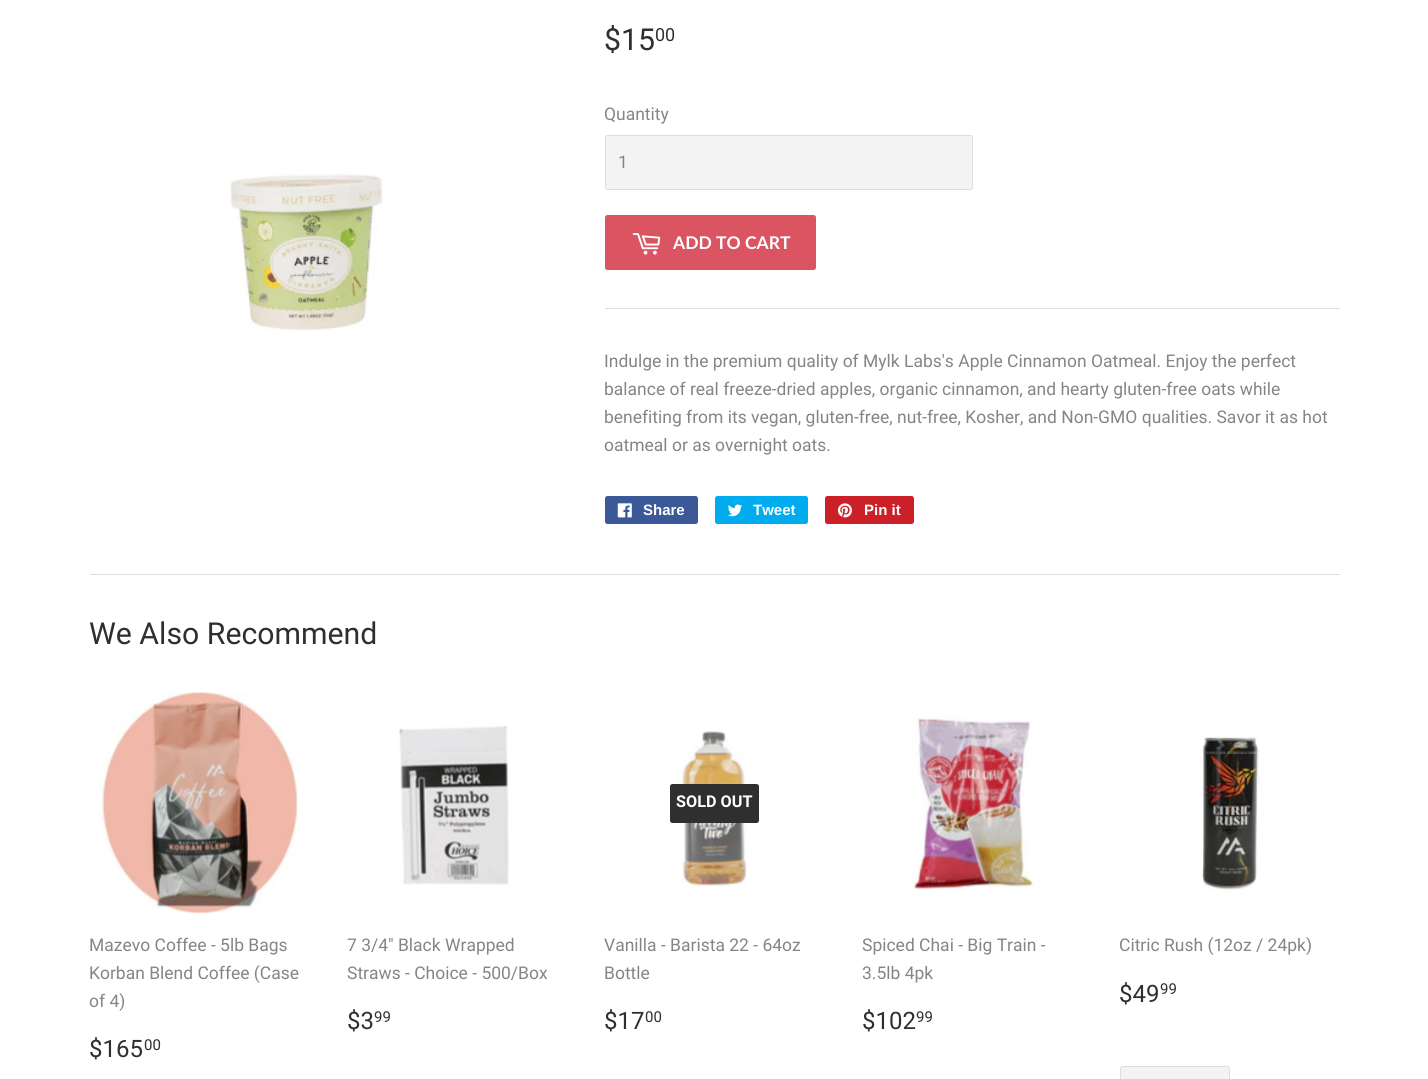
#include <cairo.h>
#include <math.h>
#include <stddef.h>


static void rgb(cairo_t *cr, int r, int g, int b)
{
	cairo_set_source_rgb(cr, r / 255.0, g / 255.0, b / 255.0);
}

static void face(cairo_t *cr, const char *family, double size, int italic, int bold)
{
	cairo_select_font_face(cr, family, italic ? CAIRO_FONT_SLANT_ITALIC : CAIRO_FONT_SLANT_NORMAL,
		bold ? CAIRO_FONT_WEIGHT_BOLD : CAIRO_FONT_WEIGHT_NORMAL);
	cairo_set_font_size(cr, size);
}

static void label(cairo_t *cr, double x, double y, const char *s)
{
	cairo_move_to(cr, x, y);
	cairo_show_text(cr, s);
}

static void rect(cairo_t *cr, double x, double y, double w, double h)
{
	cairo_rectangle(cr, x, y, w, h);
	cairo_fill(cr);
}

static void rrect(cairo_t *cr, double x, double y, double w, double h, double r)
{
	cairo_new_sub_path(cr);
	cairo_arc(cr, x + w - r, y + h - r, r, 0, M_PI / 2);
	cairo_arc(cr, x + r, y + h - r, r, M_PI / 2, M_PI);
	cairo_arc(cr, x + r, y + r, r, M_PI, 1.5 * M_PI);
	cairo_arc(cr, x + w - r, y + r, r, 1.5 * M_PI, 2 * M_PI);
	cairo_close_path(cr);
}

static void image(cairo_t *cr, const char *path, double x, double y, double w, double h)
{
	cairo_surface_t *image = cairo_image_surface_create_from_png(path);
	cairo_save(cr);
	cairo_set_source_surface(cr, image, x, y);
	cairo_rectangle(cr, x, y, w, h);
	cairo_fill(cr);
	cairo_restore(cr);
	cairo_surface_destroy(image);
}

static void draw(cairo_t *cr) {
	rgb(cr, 255, 255, 255);
	cairo_paint(cr);
	image(cr, "image0.png", 230, 173, 153, 158);
	face(cr, "Roboto", 30.25, 0, 0);
	rgb(cr, 47, 47, 47);
	label(cr, 604, 50, "$15");
	face(cr, "Roboto", 18, 0, 0);
	label(cr, 655, 41, "00");
	face(cr, "Roboto", 17.5, 0, 0);
	rgb(cr, 133, 133, 133);
	label(cr, 604, 120, "Quantity");
	rgb(cr, 243, 243, 243);
	rrect(cr, 605.5, 135.5, 367, 54, 2);
	cairo_fill_preserve(cr);
	rgb(cr, 222, 222, 222);
	cairo_set_line_width(cr, 1);
	cairo_stroke(cr);
	rgb(cr, 133, 133, 133);
	label(cr, 618, 168, "1");
	rgb(cr, 218, 84, 98);
	rrect(cr, 605, 215, 211, 55, 2.5);
	cairo_fill(cr);
	image(cr, "image1.png", 632, 233, 29, 22);
	face(cr, "Lato", 17.5, 0, 1);
	rgb(cr, 255, 255, 255);
	label(cr, 673, 249, "ADD TO CART");
	rgb(cr, 222, 222, 222);
	rect(cr, 605, 308, 735, 1);
	face(cr, "Roboto", 17.5, 0, 0);
	rgb(cr, 133, 133, 133);
	label(cr, 604, 367, "Indulge in the premium quality of Mylk Labs's Apple Cinnamon Oatmeal. Enjoy the perfect");
	label(cr, 604, 395, "balance of real freeze-dried apples, organic cinnamon, and hearty gluten-free oats while");
	label(cr, 604, 423, "benefiting from its vegan, gluten-free, nut-free, Kosher, and Non-GMO qualities. Savor it as hot");
	label(cr, 604, 451, "oatmeal or as overnight oats.");
	rgb(cr, 59, 89, 152);
	rrect(cr, 605, 496, 93, 28, 2.5);
	cairo_fill(cr);
	image(cr, "image2.png", 617, 503, 15, 15);
	face(cr, "Liberation Sans", 15, 0, 1);
	rgb(cr, 255, 255, 255);
	label(cr, 643, 515, "Share");
	rgb(cr, 0, 172, 237);
	rrect(cr, 715, 496, 93, 28, 2.5);
	cairo_fill(cr);
	image(cr, "image3.png", 728, 504, 14, 13);
	rgb(cr, 255, 255, 255);
	label(cr, 753, 515, "Tweet");
	rgb(cr, 203, 32, 39);
	rrect(cr, 825, 496, 89, 28, 2.5);
	cairo_fill(cr);
	image(cr, "image4.png", 837, 503, 15, 15);
	rgb(cr, 255, 255, 255);
	label(cr, 864, 515, "Pin it");
	rgb(cr, 222, 222, 222);
	rect(cr, 90, 574, 1250, 1);
	face(cr, "Roboto", 30.25, 0, 0);
	rgb(cr, 47, 47, 47);
	label(cr, 89, 644, "We Also Recommend");
	image(cr, "image5.png", 100, 692, 199, 222);
	face(cr, "Roboto", 17.5, 0, 0);
	rgb(cr, 133, 133, 133);
	label(cr, 89, 951, "Mazevo Coffee - 5lb Bags");
	label(cr, 89, 979, "Korban Blend Coffee (Case");
	label(cr, 89, 1007, "of 4)");
	face(cr, "Roboto", 24, 0, 0);
	rgb(cr, 47, 47, 47);
	label(cr, 89, 1057, "$165");
	face(cr, "Roboto", 15, 0, 0);
	label(cr, 144, 1050, "00");
	image(cr, "image6.png", 399, 725, 110, 160);
	face(cr, "Roboto", 17.5, 0, 0);
	rgb(cr, 133, 133, 133);
	label(cr, 347, 951, "7 3/4\" Black Wrapped");
	label(cr, 347, 979, "Straws - Choice - 500/Box");
	face(cr, "Roboto", 24, 0, 0);
	rgb(cr, 47, 47, 47);
	label(cr, 347, 1029, "$3");
	face(cr, "Roboto", 15, 0, 0);
	label(cr, 374, 1022, "99");
	image(cr, "image7.png", 681, 731, 67, 156);
	rrect(cr, 670, 784, 89, 39, 2.5);
	cairo_fill(cr);
	face(cr, "Roboto", 16.25, 0, 1);
	rgb(cr, 255, 255, 255);
	label(cr, 676, 807, "SOLD OUT");
	face(cr, "Roboto", 17.5, 0, 0);
	rgb(cr, 133, 133, 133);
	label(cr, 604, 951, "Vanilla - Barista 22 - 64oz");
	label(cr, 604, 979, "Bottle");
	face(cr, "Roboto", 24, 0, 0);
	rgb(cr, 47, 47, 47);
	label(cr, 604, 1029, "$17");
	face(cr, "Roboto", 15, 0, 0);
	label(cr, 645, 1022, "00");
	image(cr, "image8.png", 911, 715, 124, 175);
	face(cr, "Roboto", 17.5, 0, 0);
	rgb(cr, 133, 133, 133);
	label(cr, 862, 951, "Spiced Chai - Big Train -");
	label(cr, 862, 979, "3.5lb 4pk");
	face(cr, "Roboto", 24, 0, 0);
	rgb(cr, 47, 47, 47);
	label(cr, 862, 1029, "$102");
	face(cr, "Roboto", 15, 0, 0);
	label(cr, 916, 1022, "99");
	image(cr, "image9.png", 1201, 736, 59, 154);
	face(cr, "Roboto", 17.5, 0, 0);
	rgb(cr, 133, 133, 133);
	label(cr, 1119, 951, "Citric Rush (12oz / 24pk)");
	face(cr, "Roboto", 24, 0, 0);
	rgb(cr, 47, 47, 47);
	label(cr, 1119, 1002, "$49");
	face(cr, "Roboto", 15, 0, 0);
	label(cr, 1160, 994, "99");
	rgb(cr, 243, 243, 243);
	rrect(cr, 1120.5, 1066.5, 109, 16, 2);
	cairo_fill_preserve(cr);
	rgb(cr, 222, 222, 222);
	cairo_stroke(cr);
}

int main(void) {
	cairo_surface_t *surface = cairo_image_surface_create(CAIRO_FORMAT_RGB24, 1428, 1079);
	cairo_t *cr = cairo_create(surface);
	cairo_font_options_t *options = cairo_font_options_create();
	cairo_font_options_set_hint_metrics(options, CAIRO_HINT_METRICS_OFF);
	cairo_font_options_set_hint_style(options, CAIRO_HINT_STYLE_NONE);
	cairo_set_font_options(cr, options);
	cairo_set_miter_limit(cr, 4);
	draw(cr);
	cairo_surface_write_to_png(surface, "render.png");
	cairo_font_options_destroy(options);
	cairo_destroy(cr);
	cairo_surface_destroy(surface);
	return 0;
}
